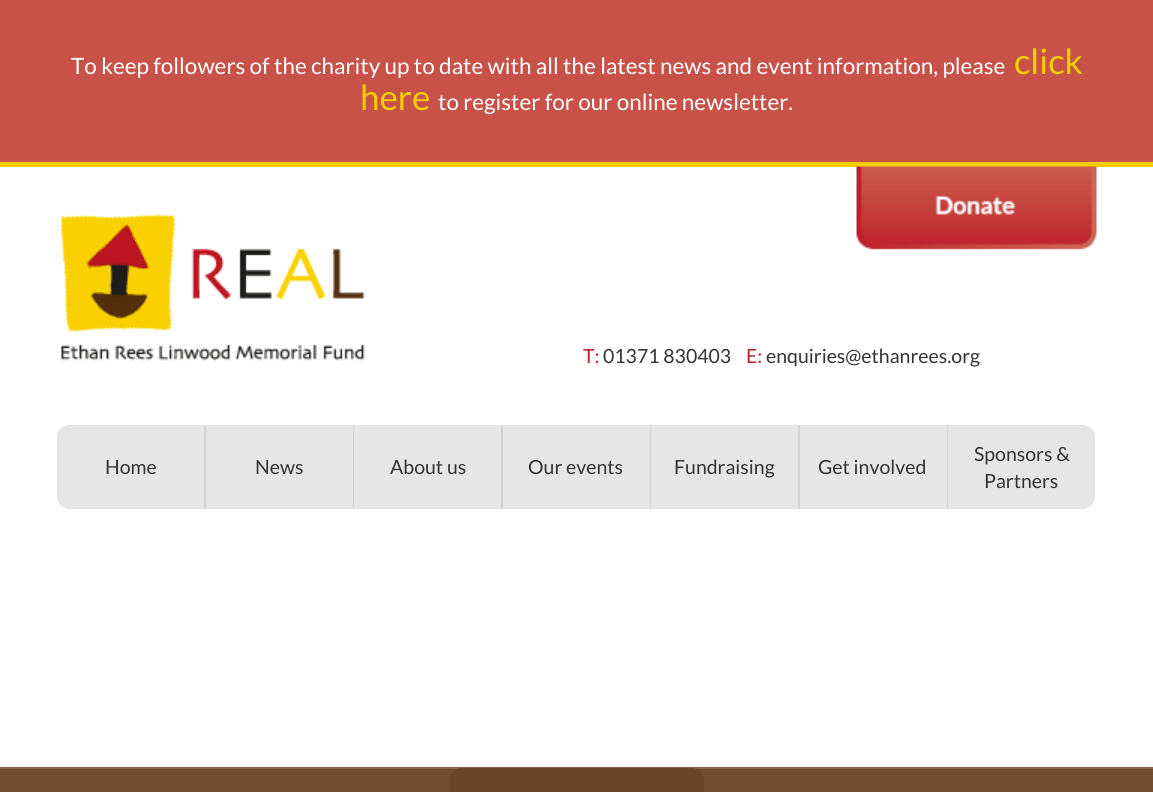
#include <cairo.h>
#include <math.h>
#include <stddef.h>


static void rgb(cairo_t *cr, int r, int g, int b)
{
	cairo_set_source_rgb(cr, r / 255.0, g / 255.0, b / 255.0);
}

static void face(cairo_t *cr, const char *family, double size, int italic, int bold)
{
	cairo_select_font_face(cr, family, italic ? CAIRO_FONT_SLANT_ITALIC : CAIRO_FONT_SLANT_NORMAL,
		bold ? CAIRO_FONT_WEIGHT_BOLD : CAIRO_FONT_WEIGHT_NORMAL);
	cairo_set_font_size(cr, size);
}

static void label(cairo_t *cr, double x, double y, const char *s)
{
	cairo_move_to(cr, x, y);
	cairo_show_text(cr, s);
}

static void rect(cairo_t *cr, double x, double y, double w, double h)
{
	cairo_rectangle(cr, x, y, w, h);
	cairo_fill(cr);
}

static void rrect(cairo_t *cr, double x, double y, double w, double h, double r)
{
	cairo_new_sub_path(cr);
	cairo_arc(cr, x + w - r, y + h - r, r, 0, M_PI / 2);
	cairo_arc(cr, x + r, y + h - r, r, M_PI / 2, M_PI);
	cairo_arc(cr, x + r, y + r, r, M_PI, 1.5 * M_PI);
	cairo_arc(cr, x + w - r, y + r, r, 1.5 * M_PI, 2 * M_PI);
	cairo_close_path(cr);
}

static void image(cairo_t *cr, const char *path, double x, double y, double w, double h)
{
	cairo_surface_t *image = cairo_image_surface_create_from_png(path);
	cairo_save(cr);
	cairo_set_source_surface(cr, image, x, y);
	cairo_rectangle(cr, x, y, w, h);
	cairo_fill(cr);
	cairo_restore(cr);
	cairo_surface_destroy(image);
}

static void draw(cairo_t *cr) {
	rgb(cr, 255, 255, 255);
	cairo_paint(cr);
	rgb(cr, 200, 82, 72);
	rect(cr, 0, 0, 1153, 162);
	rgb(cr, 246, 206, 0);
	rect(cr, 0, 162, 1153, 5);
	face(cr, "Lato", 22.5, 0, 0);
	rgb(cr, 255, 255, 255);
	label(cr, 71, 74, "To keep followers of the charity up to date with all the latest news and event information, please");
	face(cr, "Lato", 35, 0, 0);
	rgb(cr, 246, 206, 0);
	label(cr, 1014, 74, "click");
	label(cr, 360, 110, "here");
	face(cr, "Lato", 22.5, 0, 0);
	rgb(cr, 255, 255, 255);
	label(cr, 438, 110, "to register for our online newsletter.");
	image(cr, "image0.png", 60, 214, 305, 147);
	image(cr, "image1.png", 856, 166, 241, 84);
	face(cr, "Lato", 19.5, 0, 0);
	rgb(cr, 190, 30, 45);
	label(cr, 583, 363, "T:");
	rgb(cr, 51, 51, 51);
	label(cr, 603, 363, "01371 830403");
	rgb(cr, 190, 30, 45);
	label(cr, 746, 363, "E:");
	rgb(cr, 51, 51, 51);
	label(cr, 766, 363, "enquiries@ethanrees.org");
	rgb(cr, 230, 230, 230);
	cairo_new_path(cr);
	cairo_move_to(cr, 69, 425);
	cairo_line_to(cr, 206, 425);
	cairo_line_to(cr, 206, 509);
	cairo_line_to(cr, 69, 509);
	cairo_curve_to(cr, 62.5, 509, 57, 503.5, 57, 497);
	cairo_line_to(cr, 57, 437);
	cairo_curve_to(cr, 57, 430.5, 62.5, 425, 69, 425);
	cairo_close_path(cr);
	cairo_fill(cr);
	rgb(cr, 209, 210, 212);
	rect(cr, 204, 425, 2, 84);
	rgb(cr, 51, 51, 51);
	label(cr, 105, 474, "Home");
	rgb(cr, 230, 230, 230);
	rect(cr, 206, 425, 147, 84);
	rgb(cr, 209, 210, 212);
	rect(cr, 353, 425, 1, 84);
	rgb(cr, 51, 51, 51);
	label(cr, 255, 474, "News");
	rgb(cr, 230, 230, 230);
	rect(cr, 354, 425, 147, 84);
	rgb(cr, 209, 210, 212);
	rect(cr, 501, 425, 2, 84);
	rgb(cr, 51, 51, 51);
	label(cr, 390, 474, "About us");
	rgb(cr, 230, 230, 230);
	rect(cr, 503, 425, 147, 84);
	rgb(cr, 209, 210, 212);
	rect(cr, 650, 425, 1, 84);
	rgb(cr, 51, 51, 51);
	label(cr, 528, 474, "Our events");
	rgb(cr, 230, 230, 230);
	rect(cr, 651, 425, 147, 84);
	rgb(cr, 209, 210, 212);
	rect(cr, 798, 425, 2, 84);
	rgb(cr, 51, 51, 51);
	label(cr, 674, 474, "Fundraising");
	rgb(cr, 230, 230, 230);
	rect(cr, 800, 425, 147, 84);
	rgb(cr, 209, 210, 212);
	rect(cr, 947, 425, 1, 84);
	rgb(cr, 51, 51, 51);
	label(cr, 818, 474, "Get involved");
	rgb(cr, 230, 230, 230);
	cairo_new_path(cr);
	cairo_move_to(cr, 948, 425);
	cairo_line_to(cr, 1083, 425);
	cairo_curve_to(cr, 1089.5, 425, 1095, 430.5, 1095, 437);
	cairo_line_to(cr, 1095, 497);
	cairo_curve_to(cr, 1095, 503.5, 1089.5, 509, 1083, 509);
	cairo_line_to(cr, 948, 509);
	cairo_close_path(cr);
	cairo_fill(cr);
	rgb(cr, 51, 51, 51);
	label(cr, 974, 461, "Sponsors &");
	label(cr, 984, 488, "Partners");
	rgb(cr, 110, 77, 50);
	rect(cr, 0, 769, 1153, 23);
	rgb(cr, 132, 102, 78);
	rect(cr, 0, 767, 1153, 2);
	rgb(cr, 103, 70, 42);
	rrect(cr, 450, 768, 254, 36, 12);
	cairo_fill(cr);
}

int main(void) {
	cairo_surface_t *surface = cairo_image_surface_create(CAIRO_FORMAT_RGB24, 1153, 792);
	cairo_t *cr = cairo_create(surface);
	cairo_font_options_t *options = cairo_font_options_create();
	cairo_font_options_set_hint_metrics(options, CAIRO_HINT_METRICS_OFF);
	cairo_font_options_set_hint_style(options, CAIRO_HINT_STYLE_NONE);
	cairo_set_font_options(cr, options);
	cairo_set_miter_limit(cr, 4);
	draw(cr);
	cairo_surface_write_to_png(surface, "render.png");
	cairo_font_options_destroy(options);
	cairo_destroy(cr);
	cairo_surface_destroy(surface);
	return 0;
}
